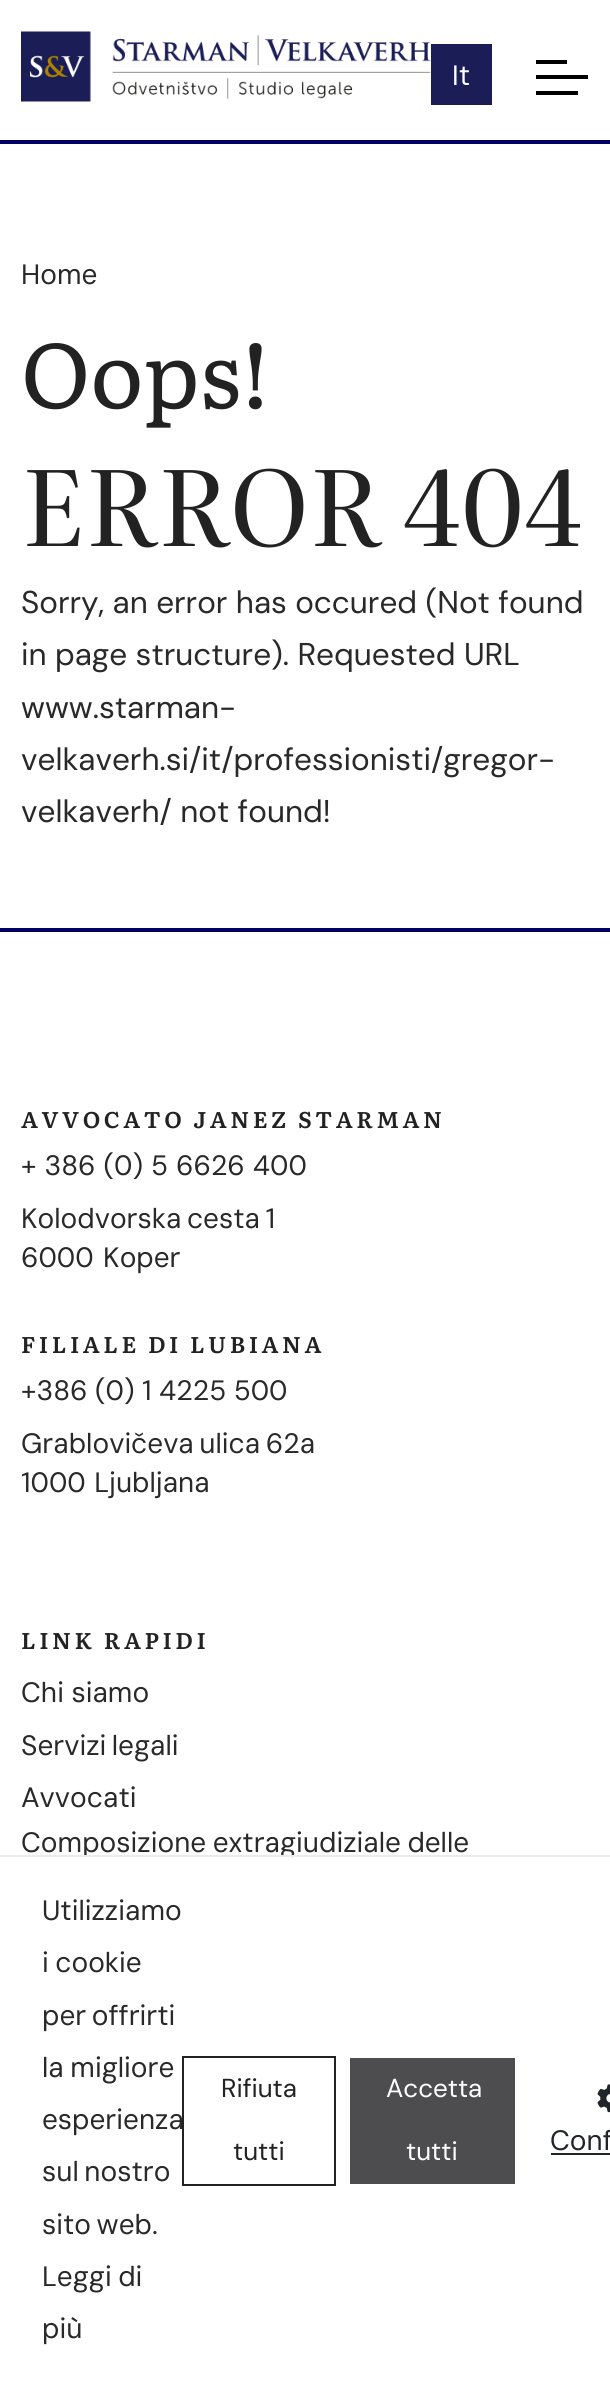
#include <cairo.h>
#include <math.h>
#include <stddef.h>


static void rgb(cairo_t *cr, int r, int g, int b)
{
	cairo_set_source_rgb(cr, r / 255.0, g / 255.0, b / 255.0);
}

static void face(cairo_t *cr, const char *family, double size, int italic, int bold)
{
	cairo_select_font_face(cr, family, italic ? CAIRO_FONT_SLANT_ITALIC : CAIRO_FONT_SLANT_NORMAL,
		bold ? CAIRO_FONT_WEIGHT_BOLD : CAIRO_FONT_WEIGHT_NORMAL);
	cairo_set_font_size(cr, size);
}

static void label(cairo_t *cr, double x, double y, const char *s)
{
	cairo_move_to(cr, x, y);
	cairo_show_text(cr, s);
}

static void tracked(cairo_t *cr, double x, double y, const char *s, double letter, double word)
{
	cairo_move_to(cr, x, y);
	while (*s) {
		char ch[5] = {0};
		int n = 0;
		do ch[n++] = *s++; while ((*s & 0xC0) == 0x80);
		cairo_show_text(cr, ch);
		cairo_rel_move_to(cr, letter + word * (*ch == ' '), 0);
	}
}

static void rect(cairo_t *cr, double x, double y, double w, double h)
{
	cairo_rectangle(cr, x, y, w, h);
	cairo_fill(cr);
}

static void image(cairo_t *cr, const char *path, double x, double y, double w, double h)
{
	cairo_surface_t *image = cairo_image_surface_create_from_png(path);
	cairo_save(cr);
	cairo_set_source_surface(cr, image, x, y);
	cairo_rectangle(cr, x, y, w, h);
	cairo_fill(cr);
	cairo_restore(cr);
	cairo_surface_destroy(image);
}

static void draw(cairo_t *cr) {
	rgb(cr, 255, 255, 255);
	cairo_paint(cr);
	image(cr, "image0.png", 21, 31, 410, 71);
	rgb(cr, 27, 29, 86);
	rect(cr, 431, 44, 61, 61);
	face(cr, "DM Sans", 28, 0, 0);
	rgb(cr, 255, 255, 255);
	label(cr, 452, 85, "It");
	rgb(cr, 0, 0, 0);
	rect(cr, 536, 60, 31, 4);
	rect(cr, 536, 75, 52, 4);
	rect(cr, 536, 91, 42, 4);
	rgb(cr, 0, 0, 102);
	rect(cr, 0, 140, 610, 4);
	rgb(cr, 41, 41, 41);
	label(cr, 21, 284, "Home");
	face(cr, "Literata", 91, 0, 0);
	rgb(cr, 34, 34, 34);
	label(cr, 21, 408, "Oops!");
	face(cr, "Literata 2", 105, 0, 0);
	label(cr, 21, 546, "ERROR 404");
	face(cr, "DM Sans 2", 31.5, 0, 0);
	rgb(cr, 41, 41, 41);
	label(cr, 21, 613, "Sorry, an error has occured (Not found");
	label(cr, 21, 665, "in page structure). Requested URL");
	label(cr, 21, 718, "www.starman-");
	label(cr, 21, 770, "velkaverh.si/it/professionisti/gregor-");
	label(cr, 21, 822, "velkaverh/ not found!");
	rgb(cr, 0, 0, 102);
	rect(cr, 0, 928, 610, 4);
	face(cr, "Literata SemiBold", 22.75, 0, 0);
	rgb(cr, 34, 34, 34);
	tracked(cr, 21, 1128, "AVVOCATO JANEZ STARMAN", 3.5, 0);
	face(cr, "DM Sans", 28, 0, 0);
	rgb(cr, 41, 41, 41);
	tracked(cr, 21, 1175, "+ 386 (0) 5 6626 400", 0, 0.5);
	tracked(cr, 21, 1228, "Kolodvorska cesta 1", 0, -2);
	tracked(cr, 21, 1267, "6000 Koper", 0, 2);
	face(cr, "Literata SemiBold", 22.75, 0, 0);
	rgb(cr, 34, 34, 34);
	tracked(cr, 21, 1353, "FILIALE DI LUBIANA", 3.5, 0);
	face(cr, "DM Sans", 28, 0, 0);
	rgb(cr, 41, 41, 41);
	label(cr, 21, 1400, "+386 (0) 1 4225 500");
	tracked(cr, 21, 1453, "Grablovičeva ulica 62a", 0, -2);
	tracked(cr, 21, 1492, "1000 Ljubljana", 0, 1);
	face(cr, "Literata SemiBold", 22.75, 0, 0);
	rgb(cr, 34, 34, 34);
	tracked(cr, 21, 1649, "LINK RAPIDI", 3.5, 0);
	face(cr, "DM Sans", 28, 0, 0);
	rgb(cr, 41, 41, 41);
	label(cr, 21, 1702, "Chi siamo");
	tracked(cr, 21, 1755, "Servizi legali", 0, -2);
	label(cr, 21, 1807, "Avvocati");
	tracked(cr, 21, 1852, "Composizione extragiudiziale delle", 0, -1);
	rgb(cr, 255, 255, 255);
	rect(cr, 84, 1857, 208, 2);
	rgb(cr, 235, 235, 235);
	rect(cr, 0, 1855, 610, 2);
	rgb(cr, 41, 41, 41);
	label(cr, 42, 1920, "Utilizziamo");
	tracked(cr, 42, 1972, "i cookie", 0, -1);
	tracked(cr, 42, 2025, "per offrirti", 0, -2);
	tracked(cr, 42, 2077, "la migliore", 0, -1);
	label(cr, 42, 2129, "esperienza");
	tracked(cr, 42, 2181, "sul nostro", 0, -2);
	tracked(cr, 42, 2234, "sito web.", 0, -2);
	tracked(cr, 42, 2286, "Leggi di", 0, -1);
	label(cr, 42, 2338, "più");
	cairo_rectangle(cr, 183, 2057, 152, 128);
	rgb(cr, 34, 34, 34);
	cairo_stroke(cr);
	face(cr, "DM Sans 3", 26, 0, 0);
	label(cr, 221, 2097, "Rifiuta");
	label(cr, 233, 2160, "tutti");
	rgb(cr, 77, 77, 79);
	rect(cr, 350, 2058, 165, 126);
	rgb(cr, 255, 255, 255);
	label(cr, 386, 2097, "Accetta");
	label(cr, 406, 2160, "tutti");
	image(cr, "image1.png", 597, 2084, 13, 29);
	face(cr, "DM Sans", 28, 0, 0);
	rgb(cr, 33, 37, 41);
	label(cr, 550, 2150, "Conf");
	rect(cr, 551, 2153, 59, 2);
}

int main(void) {
	cairo_surface_t *surface = cairo_image_surface_create(CAIRO_FORMAT_RGB24, 610, 2383);
	cairo_t *cr = cairo_create(surface);
	cairo_font_options_t *options = cairo_font_options_create();
	cairo_font_options_set_hint_metrics(options, CAIRO_HINT_METRICS_OFF);
	cairo_font_options_set_hint_style(options, CAIRO_HINT_STYLE_NONE);
	cairo_set_font_options(cr, options);
	cairo_set_miter_limit(cr, 4);
	draw(cr);
	cairo_surface_write_to_png(surface, "render.png");
	cairo_font_options_destroy(options);
	cairo_destroy(cr);
	cairo_surface_destroy(surface);
	return 0;
}
